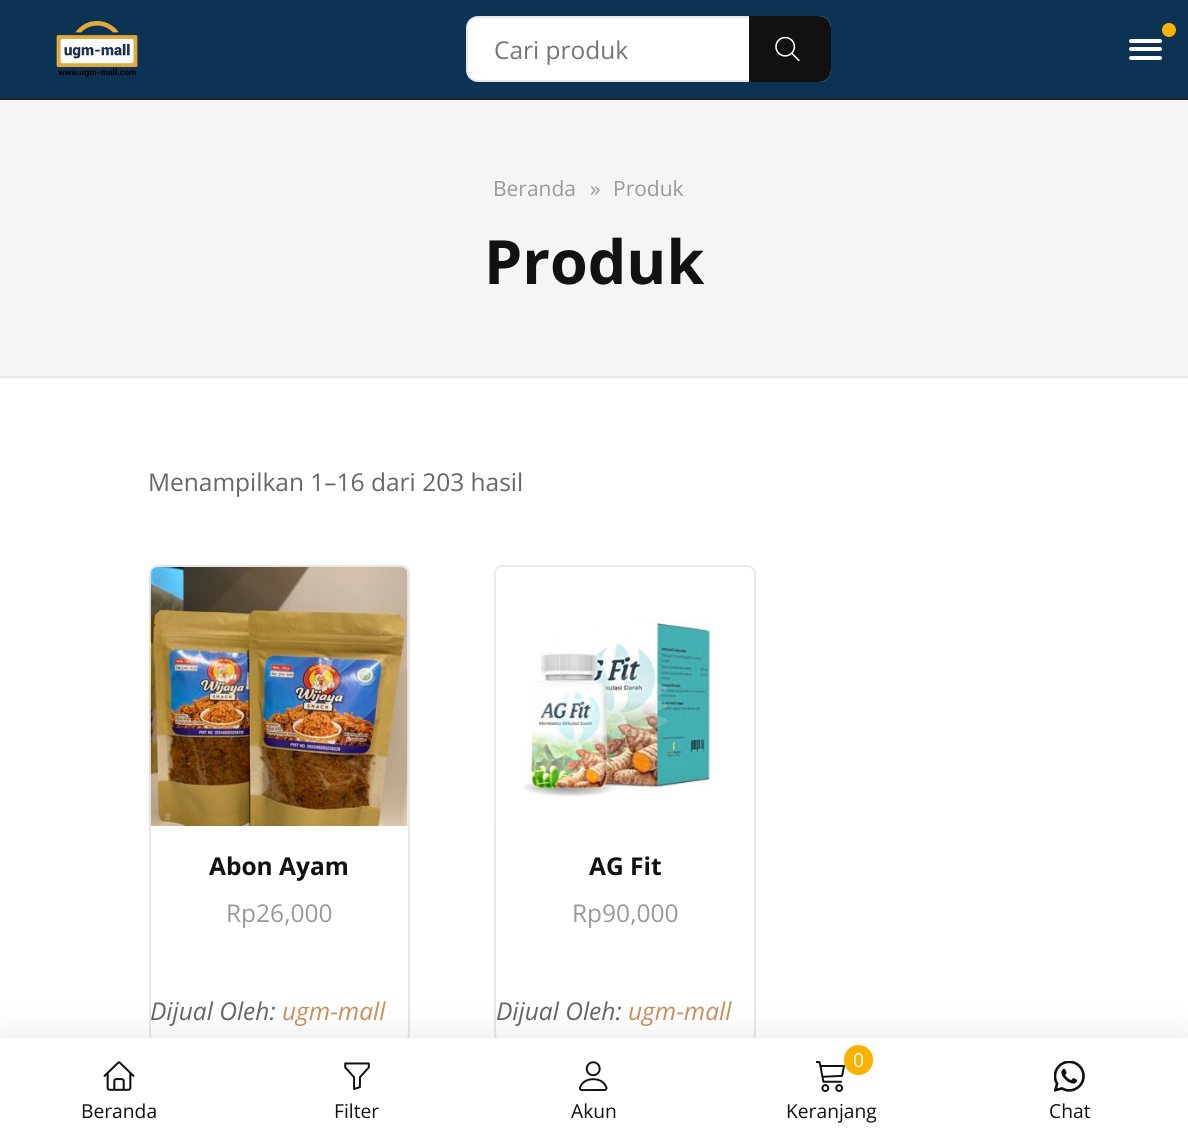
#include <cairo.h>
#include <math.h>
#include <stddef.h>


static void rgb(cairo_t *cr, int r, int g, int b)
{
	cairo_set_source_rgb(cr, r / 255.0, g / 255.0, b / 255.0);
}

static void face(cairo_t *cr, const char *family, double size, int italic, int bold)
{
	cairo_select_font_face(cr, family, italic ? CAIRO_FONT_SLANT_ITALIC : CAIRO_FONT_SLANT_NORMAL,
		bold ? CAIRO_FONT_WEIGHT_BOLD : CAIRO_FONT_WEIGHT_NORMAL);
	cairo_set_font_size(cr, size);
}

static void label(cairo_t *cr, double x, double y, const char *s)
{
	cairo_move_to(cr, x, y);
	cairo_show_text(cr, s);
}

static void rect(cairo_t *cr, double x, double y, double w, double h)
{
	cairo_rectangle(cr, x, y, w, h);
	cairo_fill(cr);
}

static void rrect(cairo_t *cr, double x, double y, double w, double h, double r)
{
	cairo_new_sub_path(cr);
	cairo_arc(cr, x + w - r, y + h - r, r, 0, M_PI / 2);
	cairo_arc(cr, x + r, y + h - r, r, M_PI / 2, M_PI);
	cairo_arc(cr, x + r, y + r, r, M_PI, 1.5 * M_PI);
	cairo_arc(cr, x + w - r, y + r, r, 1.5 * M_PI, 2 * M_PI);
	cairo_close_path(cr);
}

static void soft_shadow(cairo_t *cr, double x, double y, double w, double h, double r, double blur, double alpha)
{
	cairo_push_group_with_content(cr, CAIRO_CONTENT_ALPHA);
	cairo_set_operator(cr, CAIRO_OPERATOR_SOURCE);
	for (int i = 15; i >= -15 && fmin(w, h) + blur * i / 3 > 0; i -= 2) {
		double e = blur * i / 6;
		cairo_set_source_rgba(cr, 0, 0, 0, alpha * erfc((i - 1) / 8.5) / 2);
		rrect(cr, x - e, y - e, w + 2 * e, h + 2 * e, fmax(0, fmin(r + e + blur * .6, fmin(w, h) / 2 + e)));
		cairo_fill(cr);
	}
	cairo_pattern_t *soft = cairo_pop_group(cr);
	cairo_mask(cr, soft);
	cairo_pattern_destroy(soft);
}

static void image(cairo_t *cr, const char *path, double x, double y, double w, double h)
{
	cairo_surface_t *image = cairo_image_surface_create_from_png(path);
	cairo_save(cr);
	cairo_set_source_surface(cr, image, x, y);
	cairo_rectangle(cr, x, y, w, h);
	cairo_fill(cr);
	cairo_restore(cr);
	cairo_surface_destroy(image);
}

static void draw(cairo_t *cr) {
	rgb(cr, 255, 255, 255);
	cairo_paint(cr);
	rgb(cr, 12, 50, 84);
	rect(cr, 0, 0, 1188, 98);
	rgb(cr, 35, 35, 35);
	rect(cr, 0, 98, 1188, 2);
	image(cr, "image0.png", 56, 21, 82, 56);
	rgb(cr, 255, 255, 255);
	rrect(cr, 467, 17, 363, 64, 11);
	cairo_fill_preserve(cr);
	rgb(cr, 232, 231, 231);
	cairo_stroke(cr);
	face(cr, "Open Sans", 24.5, 0, 0);
	rgb(cr, 117, 117, 117);
	label(cr, 494, 59, "Cari produk");
	rgb(cr, 17, 17, 17);
	cairo_new_path(cr);
	cairo_move_to(cr, 749, 16);
	cairo_line_to(cr, 819, 16);
	cairo_curve_to(cr, 825.5, 16, 831, 21.5, 831, 28);
	cairo_line_to(cr, 831, 70);
	cairo_curve_to(cr, 831, 76.5, 825.5, 82, 819, 82);
	cairo_line_to(cr, 749, 82);
	cairo_close_path(cr);
	cairo_fill(cr);
	image(cr, "image1.png", 775, 37, 25, 24);
	rgb(cr, 250, 178, 0);
	cairo_arc(cr, 1169, 30, 7, 0, 2 * M_PI);
	cairo_fill(cr);
	rgb(cr, 255, 255, 255);
	rrect(cr, 1129, 47, 33, 4, 2);
	cairo_fill(cr);
	rrect(cr, 1129, 39, 33, 4, 2);
	cairo_fill(cr);
	rrect(cr, 1129, 56, 33, 4, 2);
	cairo_fill(cr);
	rgb(cr, 245, 245, 245);
	rect(cr, 0, 100, 1188, 276);
	rgb(cr, 232, 231, 231);
	rect(cr, 0, 376, 1188, 2);
	face(cr, "Open Sans", 21, 0, 0);
	rgb(cr, 153, 153, 153);
	label(cr, 493, 196, "Beranda");
	label(cr, 590, 196, "»");
	label(cr, 613, 196, "Produk");
	face(cr, "Open Sans", 61, 0, 1);
	rgb(cr, 17, 17, 17);
	label(cr, 484, 284, "Produk");
	face(cr, "Open Sans", 24.5, 0, 0);
	rgb(cr, 102, 102, 102);
	label(cr, 148, 491, "Menampilkan 1–16 dari 203 hasil");
	rrect(cr, 150, 566, 259, 476, 8);
	rgb(cr, 232, 231, 231);
	cairo_stroke(cr);
	image(cr, "image2.png", 150, 567, 258, 259);
	face(cr, "Open Sans", 24.5, 0, 1);
	rgb(cr, 17, 17, 17);
	label(cr, 209, 875, "Abon Ayam");
	face(cr, "Open Sans", 24.5, 0, 0);
	rgb(cr, 153, 153, 153);
	label(cr, 226, 922, "Rp26,000");
	face(cr, "Open Sans", 24.5, 1, 0);
	rgb(cr, 102, 102, 102);
	label(cr, 150, 1020, "Dijual Oleh:");
	rgb(cr, 205, 143, 92);
	label(cr, 282, 1020, "ugm-mall");
	rrect(cr, 495, 566, 260, 476, 8);
	rgb(cr, 232, 231, 231);
	cairo_stroke(cr);
	image(cr, "image3.png", 495, 567, 259, 259);
	face(cr, "Open Sans", 24.5, 0, 1);
	rgb(cr, 17, 17, 17);
	label(cr, 589, 875, "AG Fit");
	face(cr, "Open Sans", 24.5, 0, 0);
	rgb(cr, 153, 153, 153);
	label(cr, 572, 922, "Rp90,000");
	face(cr, "Open Sans", 24.5, 1, 0);
	rgb(cr, 102, 102, 102);
	label(cr, 496, 1020, "Dijual Oleh:");
	rgb(cr, 205, 143, 92);
	label(cr, 628, 1020, "ugm-mall");
	rgb(cr, 0, 0, 0);
	soft_shadow(cr, 0, 1038, 1188, 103, 0, 17.5, 0.1);
	rgb(cr, 255, 255, 255);
	rect(cr, 0, 1038, 1188, 102);
	image(cr, "image4.png", 103, 1061, 32, 30);
	face(cr, "Open Sans", 19.25, 0, 0);
	rgb(cr, 17, 17, 17);
	label(cr, 81, 1118, "Beranda");
	image(cr, "image5.png", 344, 1062, 26, 28);
	label(cr, 334, 1118, "Filter");
	image(cr, "image6.png", 579, 1061, 29, 31);
	label(cr, 571, 1118, "Akun");
	image(cr, "image7.png", 816, 1061, 29, 31);
	rgb(cr, 250, 178, 0);
	rrect(cr, 844, 1045, 29, 30, 14.5);
	cairo_fill(cr);
	rgb(cr, 255, 255, 255);
	label(cr, 853, 1067, "0");
	rgb(cr, 17, 17, 17);
	label(cr, 786, 1118, "Keranjang");
	image(cr, "image8.png", 1054, 1061, 31, 31);
	label(cr, 1049, 1118, "Chat");
}

int main(void) {
	cairo_surface_t *surface = cairo_image_surface_create(CAIRO_FORMAT_RGB24, 1188, 1140);
	cairo_t *cr = cairo_create(surface);
	cairo_font_options_t *options = cairo_font_options_create();
	cairo_font_options_set_hint_metrics(options, CAIRO_HINT_METRICS_OFF);
	cairo_font_options_set_hint_style(options, CAIRO_HINT_STYLE_NONE);
	cairo_set_font_options(cr, options);
	cairo_set_miter_limit(cr, 4);
	draw(cr);
	cairo_surface_write_to_png(surface, "render.png");
	cairo_font_options_destroy(options);
	cairo_destroy(cr);
	cairo_surface_destroy(surface);
	return 0;
}
